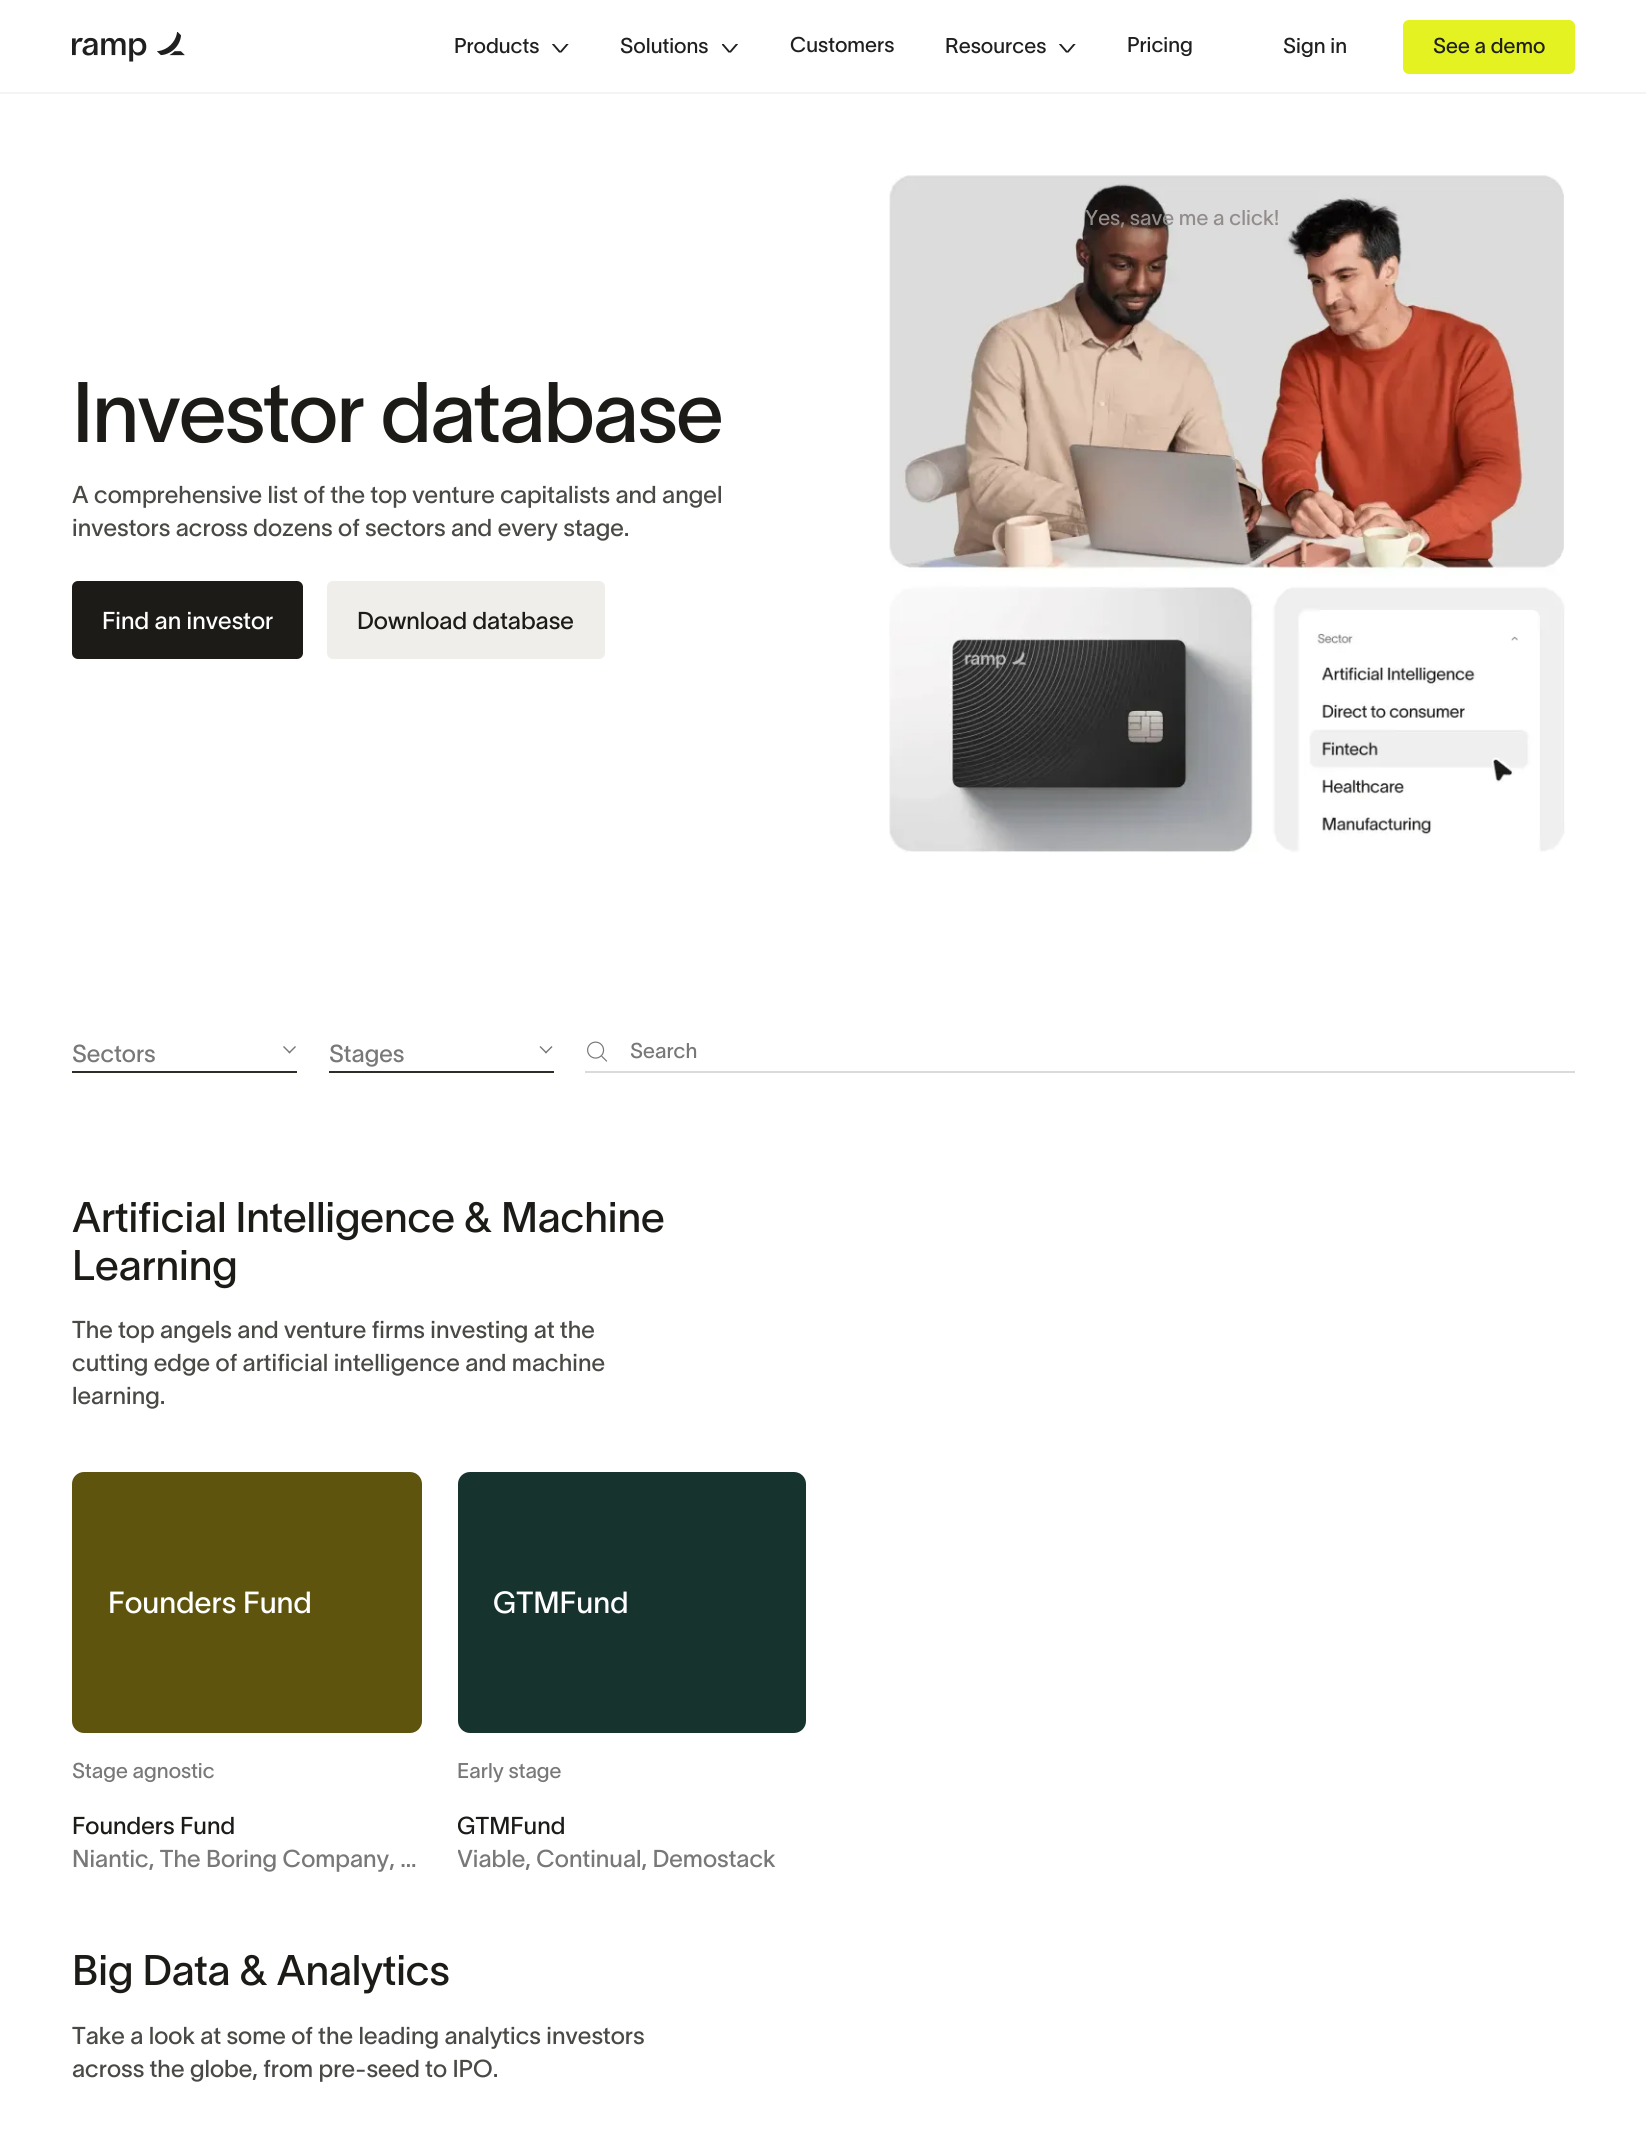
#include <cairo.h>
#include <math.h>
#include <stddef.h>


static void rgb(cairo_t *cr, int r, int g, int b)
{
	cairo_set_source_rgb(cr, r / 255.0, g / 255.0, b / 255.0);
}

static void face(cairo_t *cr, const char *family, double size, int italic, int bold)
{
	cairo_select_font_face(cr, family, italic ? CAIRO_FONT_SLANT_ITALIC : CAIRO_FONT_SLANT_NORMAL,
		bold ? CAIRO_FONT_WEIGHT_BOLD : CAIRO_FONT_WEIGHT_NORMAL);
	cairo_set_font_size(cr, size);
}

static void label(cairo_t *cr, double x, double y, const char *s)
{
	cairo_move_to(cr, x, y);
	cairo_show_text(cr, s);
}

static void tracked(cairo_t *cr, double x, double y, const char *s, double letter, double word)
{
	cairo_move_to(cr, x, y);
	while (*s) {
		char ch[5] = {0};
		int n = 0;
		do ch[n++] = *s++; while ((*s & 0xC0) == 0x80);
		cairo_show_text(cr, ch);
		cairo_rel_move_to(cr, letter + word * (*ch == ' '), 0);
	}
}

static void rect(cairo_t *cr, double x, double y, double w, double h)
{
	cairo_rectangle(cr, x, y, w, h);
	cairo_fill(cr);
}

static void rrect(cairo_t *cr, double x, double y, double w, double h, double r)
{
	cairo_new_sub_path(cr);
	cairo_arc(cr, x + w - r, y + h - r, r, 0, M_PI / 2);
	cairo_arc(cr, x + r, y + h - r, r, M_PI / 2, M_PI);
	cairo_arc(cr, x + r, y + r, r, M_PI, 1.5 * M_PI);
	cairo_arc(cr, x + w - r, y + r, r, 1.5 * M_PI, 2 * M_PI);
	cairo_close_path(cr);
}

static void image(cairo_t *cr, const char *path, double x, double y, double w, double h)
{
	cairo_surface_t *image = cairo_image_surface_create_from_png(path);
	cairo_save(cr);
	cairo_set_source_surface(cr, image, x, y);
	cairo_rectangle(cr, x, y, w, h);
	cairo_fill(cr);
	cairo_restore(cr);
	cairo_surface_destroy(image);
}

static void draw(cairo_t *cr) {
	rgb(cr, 255, 255, 255);
	cairo_paint(cr);
	rgb(cr, 244, 244, 244);
	rect(cr, 0, 92, 1646, 2);
	image(cr, "image0.png", 72, 32, 113, 30);
	face(cr, "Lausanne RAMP", 21, 0, 0);
	rgb(cr, 31, 31, 31);
	label(cr, 454, 53, "Products");
	image(cr, "image1.png", 552, 44, 17, 9);
	label(cr, 620, 53, "Solutions");
	image(cr, "image2.png", 722, 44, 17, 9);
	label(cr, 790, 52, "Customers");
	label(cr, 945, 53, "Resources");
	image(cr, "image1.png", 1059, 44, 17, 9);
	label(cr, 1127, 52, "Pricing");
	face(cr, "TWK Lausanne", 21, 0, 0);
	label(cr, 1283, 53, "Sign in");
	image(cr, "image3.png", 889, 175, 676, 678);
	rgb(cr, 146, 141, 139);
	label(cr, 1085, 225, "Yes, save me a click!");
	rgb(cr, 228, 242, 34);
	rrect(cr, 1403, 20, 172, 54, 6);
	cairo_fill(cr);
	rgb(cr, 31, 31, 31);
	label(cr, 1433, 53, "See a demo");
	face(cr, "TWK Lausanne", 84, 0, 0);
	rgb(cr, 28, 27, 23);
	tracked(cr, 72, 442, "Investor database", -1.7, 0);
	face(cr, "TWK Lausanne", 24, 0, 0);
	rgb(cr, 73, 73, 69);
	label(cr, 72, 503, "A comprehensive list of the top venture capitalists and angel");
	label(cr, 72, 536, "investors across dozens of sectors and every stage.");
	rgb(cr, 28, 27, 23);
	rrect(cr, 72, 581, 231, 78, 6);
	cairo_fill(cr);
	rgb(cr, 255, 255, 255);
	label(cr, 102, 629, "Find an investor");
	rgb(cr, 239, 238, 235);
	rrect(cr, 327, 581, 278, 78, 6);
	cairo_fill(cr);
	rgb(cr, 28, 27, 23);
	label(cr, 357, 629, "Download database");
	rgb(cr, 46, 46, 41);
	rect(cr, 72, 1071, 225, 2);
	rgb(cr, 120, 120, 120);
	label(cr, 72, 1062, "Sectors");
	cairo_new_path(cr);
	cairo_move_to(cr, 295, 1046);
	cairo_line_to(cr, 296, 1047);
	cairo_line_to(cr, 289.5, 1053.5);
	cairo_line_to(cr, 288.5, 1052.5);
	cairo_close_path(cr);
	cairo_fill(cr);
	cairo_new_path(cr);
	cairo_move_to(cr, 284, 1046);
	cairo_line_to(cr, 290.5, 1052.5);
	cairo_line_to(cr, 289.5, 1053.5);
	cairo_line_to(cr, 283, 1047);
	cairo_close_path(cr);
	cairo_fill(cr);
	rgb(cr, 46, 46, 41);
	rect(cr, 329, 1071, 225, 2);
	rgb(cr, 120, 120, 120);
	label(cr, 329, 1062, "Stages");
	cairo_new_path(cr);
	cairo_move_to(cr, 551.5, 1046);
	cairo_line_to(cr, 552.5, 1047);
	cairo_line_to(cr, 546, 1053.5);
	cairo_line_to(cr, 545, 1052.5);
	cairo_close_path(cr);
	cairo_fill(cr);
	cairo_new_path(cr);
	cairo_move_to(cr, 540.5, 1046);
	cairo_line_to(cr, 547, 1052.5);
	cairo_line_to(cr, 546, 1053.5);
	cairo_line_to(cr, 539.5, 1047);
	cairo_close_path(cr);
	cairo_fill(cr);
	image(cr, "image4.png", 587, 1041, 21, 21);
	rgb(cr, 218, 218, 218);
	rect(cr, 585, 1071, 990, 2);
	face(cr, "TWK Lausanne", 21, 0, 0);
	rgb(cr, 120, 120, 120);
	label(cr, 630, 1058, "Search");
	face(cr, "TWK Lausanne", 42, 0, 0);
	rgb(cr, 28, 27, 23);
	tracked(cr, 72, 1232, "Artificial Intelligence & Machine", -0.2, 0);
	tracked(cr, 72, 1280, "Learning", -0.2, 0);
	face(cr, "TWK Lausanne", 24, 0, 0);
	rgb(cr, 73, 73, 69);
	label(cr, 72, 1338, "The top angels and venture firms investing at the");
	label(cr, 72, 1371, "cutting edge of artificial intelligence and machine");
	label(cr, 72, 1404, "learning.");
	rgb(cr, 94, 84, 14);
	rrect(cr, 72, 1472, 350, 261, 12);
	cairo_fill(cr);
	face(cr, "TWK Lausanne", 30, 0, 0);
	rgb(cr, 255, 255, 255);
	label(cr, 108, 1613, "Founders Fund");
	face(cr, "TWK Lausanne", 21, 0, 0);
	rgb(cr, 120, 120, 120);
	label(cr, 72, 1778, "Stage agnostic");
	face(cr, "TWK Lausanne", 24, 0, 0);
	rgb(cr, 28, 27, 23);
	label(cr, 72, 1834, "Founders Fund");
	rgb(cr, 120, 120, 120);
	label(cr, 72, 1867, "Niantic, The Boring Company, …");
	rgb(cr, 23, 51, 45);
	rrect(cr, 458, 1472, 348, 261, 12);
	cairo_fill(cr);
	face(cr, "TWK Lausanne", 30, 0, 0);
	rgb(cr, 255, 255, 255);
	label(cr, 493, 1613, "GTMFund");
	face(cr, "TWK Lausanne", 21, 0, 0);
	rgb(cr, 120, 120, 120);
	label(cr, 457, 1778, "Early stage");
	cairo_save(cr);
	cairo_rectangle(cr, 458, 1472, 348, 402);
	cairo_clip(cr);
	face(cr, "TWK Lausanne", 24, 0, 0);
	rgb(cr, 28, 27, 23);
	label(cr, 457, 1834, "GTMFund");
	cairo_restore(cr);
	cairo_save(cr);
	cairo_rectangle(cr, 458, 1841, 348, 33);
	cairo_clip(cr);
	face(cr, "TWK Lausanne", 24, 0, 0);
	label(cr, 457, 1867, "Viable, Continual, Demostack");
	cairo_restore(cr);
	face(cr, "TWK Lausanne", 42, 0, 0);
	rgb(cr, 28, 27, 23);
	tracked(cr, 72, 1985, "Big Data & Analytics", -0.2, 0);
	face(cr, "TWK Lausanne", 24, 0, 0);
	rgb(cr, 73, 73, 69);
	label(cr, 72, 2044, "Take a look at some of the leading analytics investors");
	label(cr, 72, 2077, "across the globe, from pre-seed to IPO.");
}

int main(void) {
	cairo_surface_t *surface = cairo_image_surface_create(CAIRO_FORMAT_RGB24, 1646, 2135);
	cairo_t *cr = cairo_create(surface);
	cairo_font_options_t *options = cairo_font_options_create();
	cairo_font_options_set_hint_metrics(options, CAIRO_HINT_METRICS_OFF);
	cairo_font_options_set_hint_style(options, CAIRO_HINT_STYLE_NONE);
	cairo_set_font_options(cr, options);
	cairo_set_miter_limit(cr, 4);
	draw(cr);
	cairo_surface_write_to_png(surface, "render.png");
	cairo_font_options_destroy(options);
	cairo_destroy(cr);
	cairo_surface_destroy(surface);
	return 0;
}
